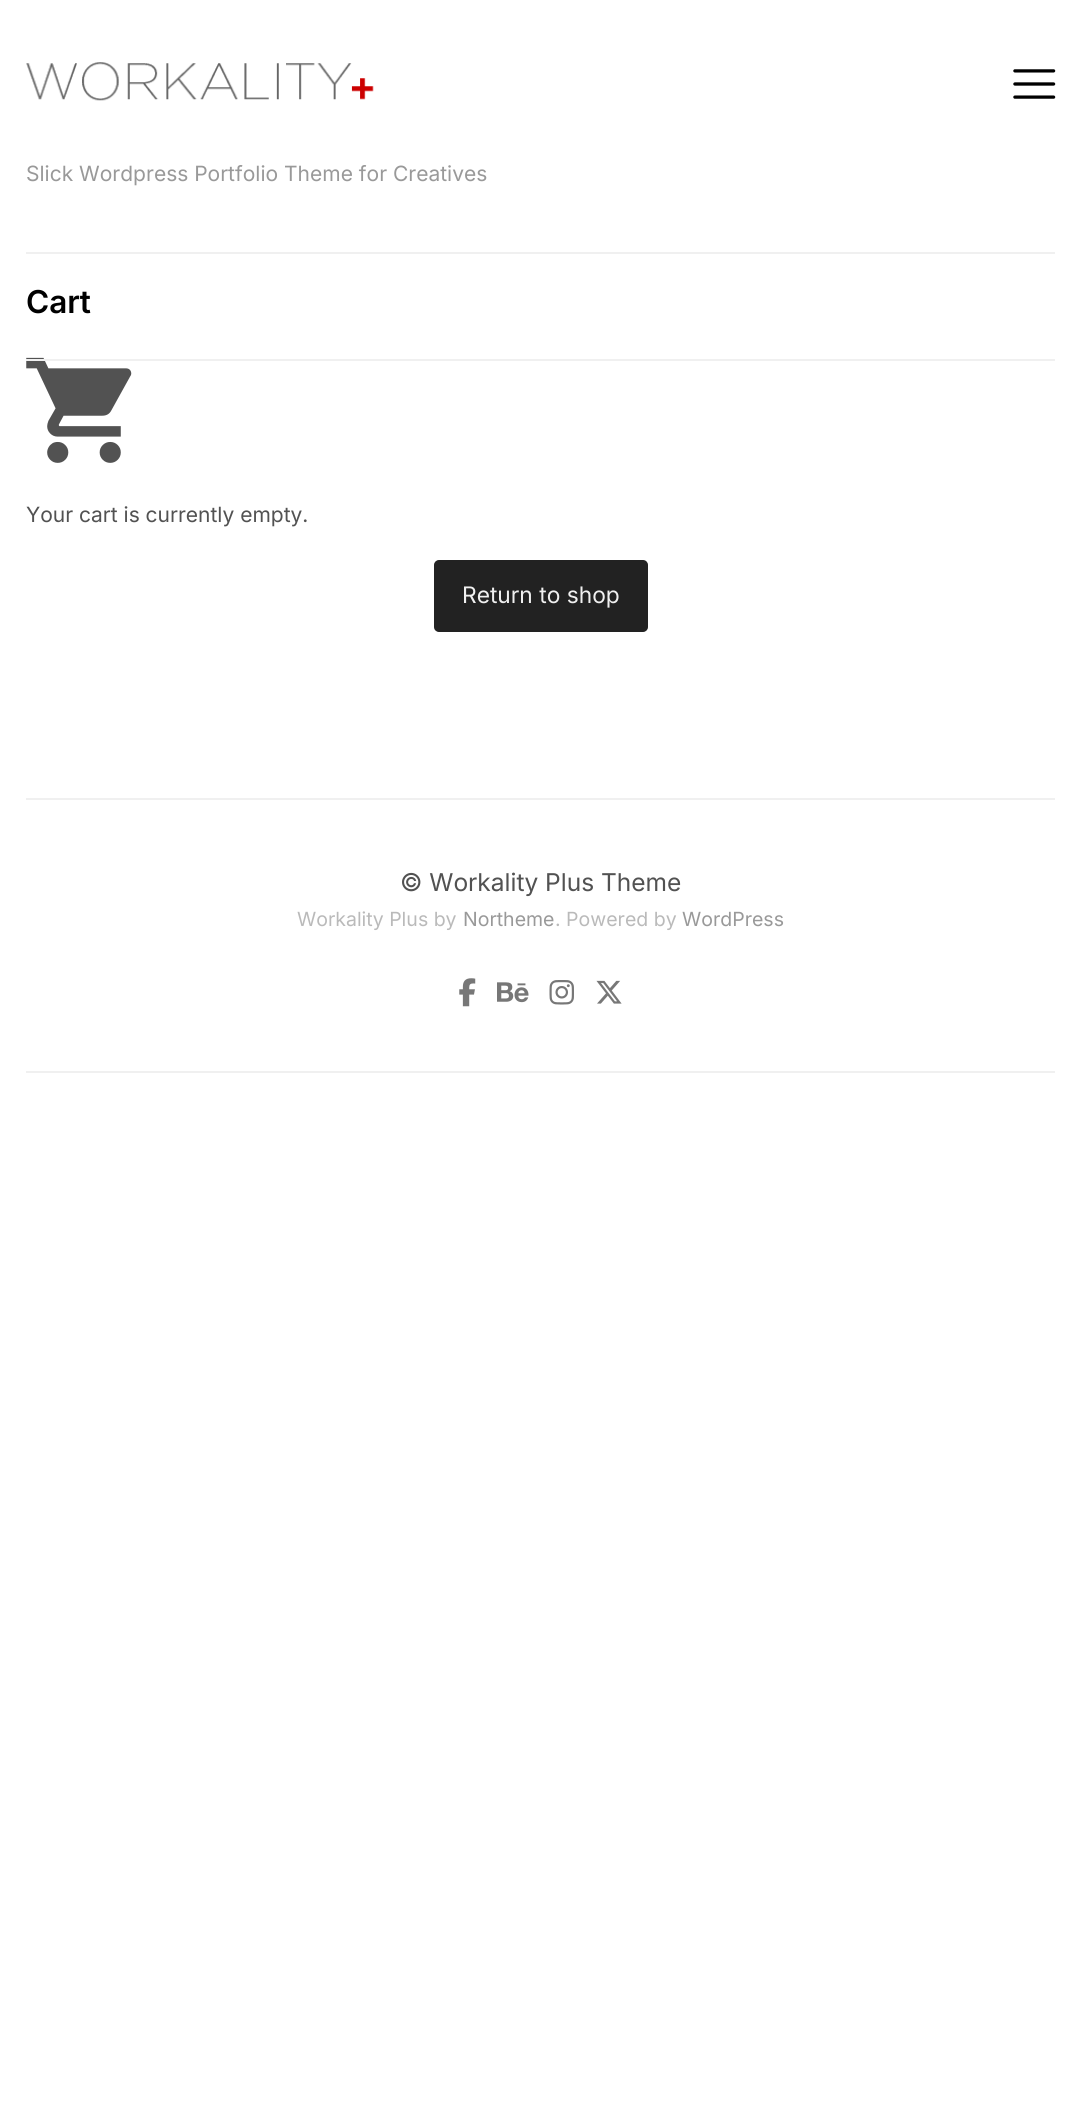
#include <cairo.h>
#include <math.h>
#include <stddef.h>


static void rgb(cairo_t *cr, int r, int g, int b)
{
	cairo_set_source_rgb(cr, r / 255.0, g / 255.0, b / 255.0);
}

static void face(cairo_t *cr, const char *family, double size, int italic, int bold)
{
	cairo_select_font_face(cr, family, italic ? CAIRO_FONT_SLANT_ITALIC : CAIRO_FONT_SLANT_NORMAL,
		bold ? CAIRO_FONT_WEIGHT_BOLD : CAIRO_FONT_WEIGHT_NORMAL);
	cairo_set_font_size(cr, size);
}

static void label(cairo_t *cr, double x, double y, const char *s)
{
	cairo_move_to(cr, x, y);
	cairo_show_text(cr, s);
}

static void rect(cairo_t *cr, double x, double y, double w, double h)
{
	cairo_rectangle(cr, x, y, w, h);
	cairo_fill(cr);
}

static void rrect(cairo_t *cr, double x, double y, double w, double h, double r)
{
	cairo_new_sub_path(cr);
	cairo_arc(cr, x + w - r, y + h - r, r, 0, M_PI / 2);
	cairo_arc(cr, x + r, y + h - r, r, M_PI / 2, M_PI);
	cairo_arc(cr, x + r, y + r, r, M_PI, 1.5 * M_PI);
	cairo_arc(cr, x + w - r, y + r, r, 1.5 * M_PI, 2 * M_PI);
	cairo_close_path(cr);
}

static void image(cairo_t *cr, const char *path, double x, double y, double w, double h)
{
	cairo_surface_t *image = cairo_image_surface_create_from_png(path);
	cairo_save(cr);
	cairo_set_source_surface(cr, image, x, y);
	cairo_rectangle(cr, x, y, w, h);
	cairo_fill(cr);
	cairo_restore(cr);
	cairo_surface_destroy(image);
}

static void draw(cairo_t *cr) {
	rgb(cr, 255, 255, 255);
	cairo_paint(cr);
	rgb(cr, 240, 240, 240);
	rect(cr, 26, 252, 1029, 2);
	image(cr, "image0.png", 1013, 69, 43, 30);
	image(cr, "image1.png", 26, 62, 348, 39);
	face(cr, "Inter", 21, 0, 0);
	rgb(cr, 153, 153, 153);
	label(cr, 26, 181, "Slick Wordpress Portfolio Theme for Creatives");
	image(cr, "image2.png", 26, 357, 106, 106);
	rgb(cr, 240, 240, 240);
	rect(cr, 26, 359, 1029, 2);
	face(cr, "Inter SemiBold", 31.5, 0, 0);
	rgb(cr, 0, 0, 0);
	label(cr, 26, 313, "Cart");
	face(cr, "Inter", 21, 0, 0);
	rgb(cr, 82, 82, 82);
	label(cr, 26, 522, "Your cart is currently empty.");
	rgb(cr, 34, 34, 34);
	rrect(cr, 435, 561, 212, 70, 4);
	cairo_fill_preserve(cr);
	cairo_stroke(cr);
	face(cr, "Inter", 22.75, 0, 0);
	rgb(cr, 240, 240, 240);
	label(cr, 462, 603, "Return to shop");
	rect(cr, 26, 798, 1029, 2);
	rect(cr, 26, 1071, 1029, 2);
	face(cr, "Inter", 24.5, 0, 0);
	rgb(cr, 82, 82, 82);
	label(cr, 400, 891, "© Workality Plus Theme");
	face(cr, "Inter", 19.5, 0, 0);
	rgb(cr, 186, 186, 186);
	label(cr, 297, 926, "Workality Plus by");
	rgb(cr, 153, 153, 153);
	label(cr, 463, 926, "Northeme");
	rgb(cr, 186, 186, 186);
	label(cr, 555, 926, ". Powered by");
	rgb(cr, 153, 153, 153);
	label(cr, 682, 926, "WordPress");
	image(cr, "image3.png", 459, 978, 17, 29);
	image(cr, "image4.png", 497, 982, 32, 21);
	image(cr, "image5.png", 549, 980, 25, 25);
	image(cr, "image6.png", 596, 980, 26, 24);
}

int main(void) {
	cairo_surface_t *surface = cairo_image_surface_create(CAIRO_FORMAT_RGB24, 1080, 2115);
	cairo_t *cr = cairo_create(surface);
	cairo_font_options_t *options = cairo_font_options_create();
	cairo_font_options_set_hint_metrics(options, CAIRO_HINT_METRICS_OFF);
	cairo_font_options_set_hint_style(options, CAIRO_HINT_STYLE_NONE);
	cairo_set_font_options(cr, options);
	cairo_set_miter_limit(cr, 4);
	draw(cr);
	cairo_surface_write_to_png(surface, "render.png");
	cairo_font_options_destroy(options);
	cairo_destroy(cr);
	cairo_surface_destroy(surface);
	return 0;
}
